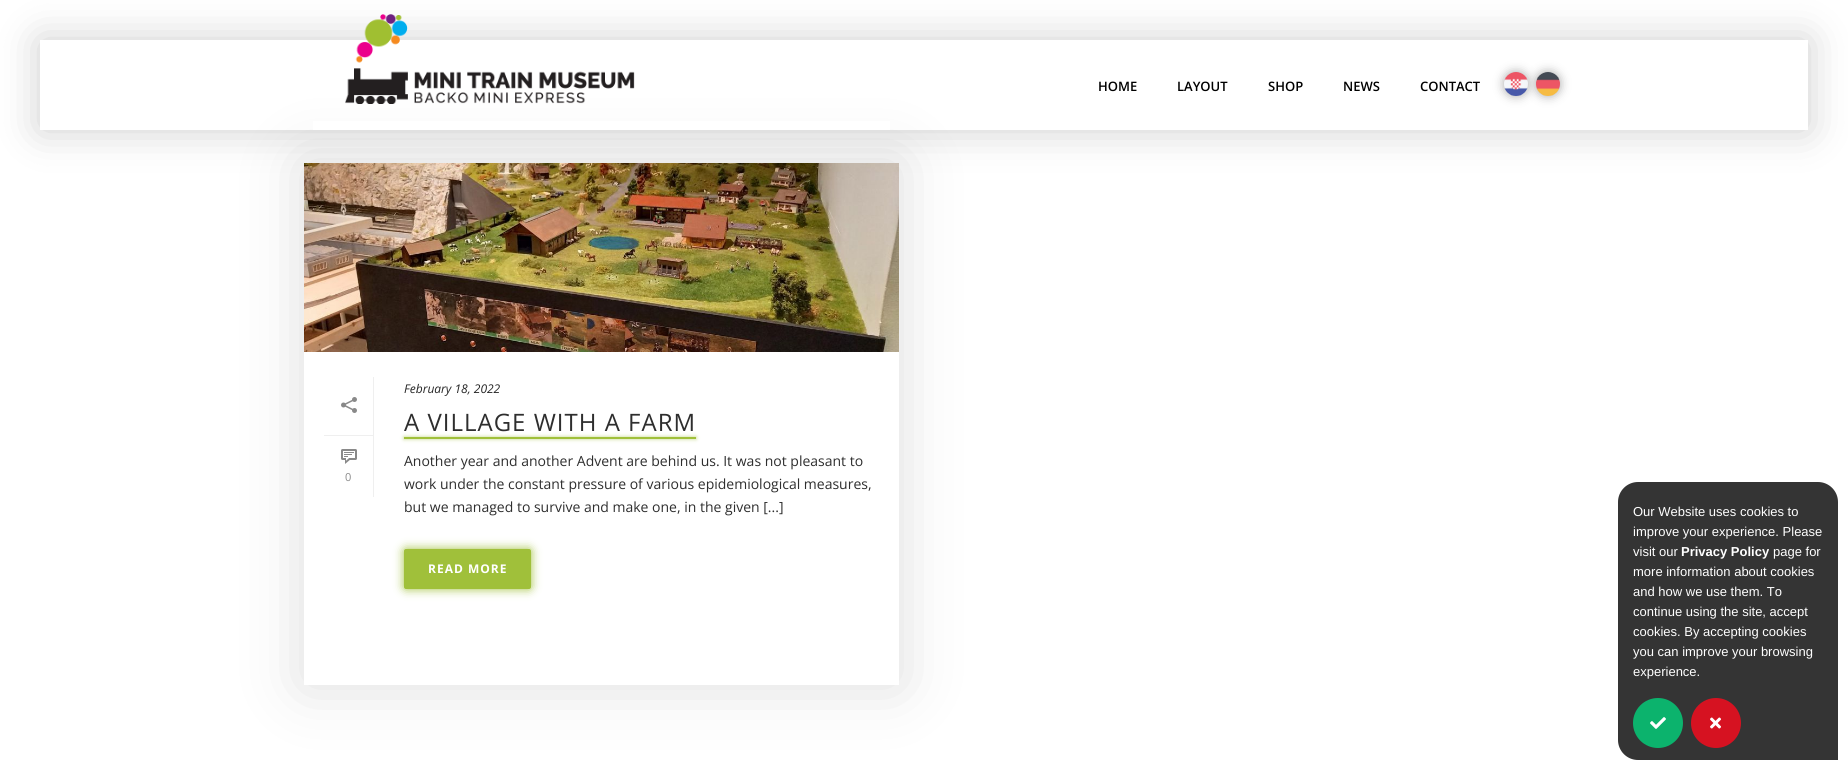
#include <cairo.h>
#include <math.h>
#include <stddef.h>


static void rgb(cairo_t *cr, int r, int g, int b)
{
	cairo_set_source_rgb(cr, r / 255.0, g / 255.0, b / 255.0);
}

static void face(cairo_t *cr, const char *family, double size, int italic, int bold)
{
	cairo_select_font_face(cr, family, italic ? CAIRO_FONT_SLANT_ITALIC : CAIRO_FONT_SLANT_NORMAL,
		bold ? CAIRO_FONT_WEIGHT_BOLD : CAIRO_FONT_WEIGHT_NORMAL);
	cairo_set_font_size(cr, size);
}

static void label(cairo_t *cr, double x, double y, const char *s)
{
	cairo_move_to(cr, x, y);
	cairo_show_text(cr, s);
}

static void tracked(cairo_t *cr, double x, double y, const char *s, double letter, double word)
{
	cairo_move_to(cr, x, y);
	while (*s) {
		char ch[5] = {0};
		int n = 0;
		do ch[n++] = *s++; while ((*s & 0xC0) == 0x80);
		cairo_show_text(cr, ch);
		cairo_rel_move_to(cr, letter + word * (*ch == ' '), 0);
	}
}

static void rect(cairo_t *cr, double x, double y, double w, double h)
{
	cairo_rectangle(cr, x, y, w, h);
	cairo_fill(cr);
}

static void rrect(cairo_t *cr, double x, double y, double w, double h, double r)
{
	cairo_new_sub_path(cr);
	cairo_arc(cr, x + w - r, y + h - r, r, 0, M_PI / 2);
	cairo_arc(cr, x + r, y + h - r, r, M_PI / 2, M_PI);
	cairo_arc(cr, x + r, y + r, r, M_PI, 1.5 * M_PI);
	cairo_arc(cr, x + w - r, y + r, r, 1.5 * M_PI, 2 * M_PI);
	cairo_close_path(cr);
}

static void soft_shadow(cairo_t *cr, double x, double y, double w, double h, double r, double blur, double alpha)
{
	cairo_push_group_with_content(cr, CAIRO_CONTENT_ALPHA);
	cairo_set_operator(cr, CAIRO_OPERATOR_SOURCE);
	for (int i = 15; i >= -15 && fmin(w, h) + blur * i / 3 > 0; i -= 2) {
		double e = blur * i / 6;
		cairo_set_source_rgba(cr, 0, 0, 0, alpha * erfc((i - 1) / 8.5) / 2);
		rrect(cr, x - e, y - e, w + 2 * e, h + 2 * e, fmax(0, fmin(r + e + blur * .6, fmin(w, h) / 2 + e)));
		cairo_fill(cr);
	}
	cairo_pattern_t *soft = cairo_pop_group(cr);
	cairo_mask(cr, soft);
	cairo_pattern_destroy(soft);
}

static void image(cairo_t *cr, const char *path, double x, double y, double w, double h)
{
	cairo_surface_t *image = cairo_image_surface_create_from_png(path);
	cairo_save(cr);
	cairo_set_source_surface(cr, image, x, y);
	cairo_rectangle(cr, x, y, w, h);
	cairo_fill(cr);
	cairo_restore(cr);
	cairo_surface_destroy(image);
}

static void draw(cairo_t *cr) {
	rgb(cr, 255, 255, 255);
	cairo_paint(cr);
	cairo_save(cr);
	cairo_set_fill_rule(cr, CAIRO_FILL_RULE_EVEN_ODD);
	cairo_new_path(cr);
	cairo_move_to(cr, 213, 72);
	cairo_line_to(cr, 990, 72);
	cairo_line_to(cr, 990, 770);
	cairo_line_to(cr, 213, 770);
	cairo_close_path(cr);
	cairo_move_to(cr, 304, 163);
	cairo_line_to(cr, 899, 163);
	cairo_line_to(cr, 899, 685);
	cairo_line_to(cr, 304, 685);
	cairo_close_path(cr);
	cairo_clip(cr);
	rgb(cr, 221, 221, 221);
	soft_shadow(cr, 304, 163, 595, 522, 0, 30, 1);
	cairo_restore(cr);
	image(cr, "image3.png", 304, 163, 595, 189);
	cairo_save(cr);
	cairo_set_fill_rule(cr, CAIRO_FILL_RULE_EVEN_ODD);
	cairo_new_path(cr);
	cairo_move_to(cr, 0, 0);
	cairo_line_to(cr, 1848, 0);
	cairo_line_to(cr, 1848, 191);
	cairo_line_to(cr, 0, 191);
	cairo_close_path(cr);
	cairo_move_to(cr, 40, 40);
	cairo_line_to(cr, 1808, 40);
	cairo_line_to(cr, 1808, 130);
	cairo_line_to(cr, 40, 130);
	cairo_close_path(cr);
	cairo_clip(cr);
	rgb(cr, 0, 0, 0);
	soft_shadow(cr, 40, 40, 1768, 90, 0, 20, 0.2);
	cairo_restore(cr);
	image(cr, "image0.png", 345, 14, 290, 90);
	face(cr, "Open Sans SemiBold", 13, 0, 0);
	rgb(cr, 0, 0, 0);
	label(cr, 1098, 91, "HOME");
	label(cr, 1177, 91, "LAYOUT");
	label(cr, 1268, 91, "SHOP");
	label(cr, 1343, 91, "NEWS");
	label(cr, 1420, 91, "CONTACT");
	rgb(cr, 170, 170, 170);
	soft_shadow(cr, 1504, 72, 24, 24, 12, 5, 1);
	image(cr, "image1.png", 1504, 72, 24, 24);
	soft_shadow(cr, 1536, 72, 24, 24, 12, 5, 1);
	image(cr, "image2.png", 1536, 72, 24, 24);
	cairo_set_source_rgba(cr, 1, 1, 1, 0.94);
	rect(cr, 313, 121, 577, 9);
	rgb(cr, 239, 239, 239);
	rect(cr, 373, 377, 1, 120);
	rect(cr, 324, 435, 49, 1);
	image(cr, "image4.png", 341, 397, 16, 16);
	image(cr, "image5.png", 341, 449, 16, 15);
	face(cr, "Open Sans", 11, 0, 0);
	rgb(cr, 137, 137, 137);
	label(cr, 345, 481, "0");
	face(cr, "Open Sans", 12, 1, 0);
	rgb(cr, 37, 37, 37);
	label(cr, 404, 393, "February 18, 2022");
	rgb(cr, 160, 192, 58);
	soft_shadow(cr, 404, 437, 292, 2, 0, 2, 0.63);
	face(cr, "Open Sans", 24, 0, 0);
	rgb(cr, 46, 46, 46);
	tracked(cr, 404, 431, "A VILLAGE WITH A FARM", 1, 0);
	rgb(cr, 160, 192, 58);
	rect(cr, 404, 437, 292, 2);
	face(cr, "Open Sans", 14, 0, 0);
	rgb(cr, 46, 46, 46);
	label(cr, 404, 466, "Another year and another Advent are behind us. It was not pleasant to");
	label(cr, 404, 489, "work under the constant pressure of various epidemiological measures,");
	label(cr, 404, 512, "but we managed to survive and make one, in the given [...]");
	rgb(cr, 160, 192, 58);
	soft_shadow(cr, 404, 549, 127, 40, 2, 5, 1);
	rgb(cr, 160, 192, 58);
	rrect(cr, 404, 549, 127, 40, 2);
	cairo_fill(cr);
	face(cr, "Open Sans", 12, 0, 1);
	rgb(cr, 255, 255, 255);
	tracked(cr, 428, 573, "READ MORE", 1, 0);
	rgb(cr, 52, 52, 52);
	cairo_new_path(cr);
	cairo_move_to(cr, 1638, 482);
	cairo_line_to(cr, 1818, 482);
	cairo_curve_to(cr, 1829, 482, 1838, 491, 1838, 502);
	cairo_line_to(cr, 1838, 760);
	cairo_line_to(cr, 1638, 760);
	cairo_curve_to(cr, 1627, 760, 1618, 751, 1618, 740);
	cairo_line_to(cr, 1618, 502);
	cairo_curve_to(cr, 1618, 491, 1627, 482, 1638, 482);
	cairo_close_path(cr);
	cairo_fill(cr);
	face(cr, "Liberation Sans", 13, 0, 0);
	rgb(cr, 255, 255, 255);
	label(cr, 1633, 516, "Our Website uses cookies to");
	label(cr, 1633, 536, "improve your experience. Please");
	label(cr, 1633, 556, "visit our");
	face(cr, "Liberation Sans", 13, 0, 1);
	label(cr, 1681, 556, "Privacy Policy");
	face(cr, "Liberation Sans", 13, 0, 0);
	label(cr, 1773, 556, "page for");
	label(cr, 1633, 576, "more information about cookies");
	label(cr, 1633, 596, "and how we use them. To");
	label(cr, 1633, 616, "continue using the site, accept");
	label(cr, 1633, 636, "cookies. By accepting cookies");
	label(cr, 1633, 656, "you can improve your browsing");
	label(cr, 1633, 676, "experience.");
	rgb(cr, 12, 179, 109);
	cairo_new_path(cr);
	cairo_arc(cr, 1658, 723, 25, 0, 2 * M_PI);
	cairo_fill(cr);
	image(cr, "image6.png", 1650, 717, 16, 12);
	rgb(cr, 214, 18, 33);
	cairo_arc(cr, 1716, 723, 25, 0, 2 * M_PI);
	cairo_fill(cr);
	image(cr, "image7.png", 1710, 717, 11, 12);
}

int main(void) {
	cairo_surface_t *surface = cairo_image_surface_create(CAIRO_FORMAT_RGB24, 1848, 770);
	cairo_t *cr = cairo_create(surface);
	cairo_font_options_t *options = cairo_font_options_create();
	cairo_font_options_set_hint_metrics(options, CAIRO_HINT_METRICS_OFF);
	cairo_font_options_set_hint_style(options, CAIRO_HINT_STYLE_NONE);
	cairo_set_font_options(cr, options);
	cairo_set_miter_limit(cr, 4);
	draw(cr);
	cairo_surface_write_to_png(surface, "render.png");
	cairo_font_options_destroy(options);
	cairo_destroy(cr);
	cairo_surface_destroy(surface);
	return 0;
}
